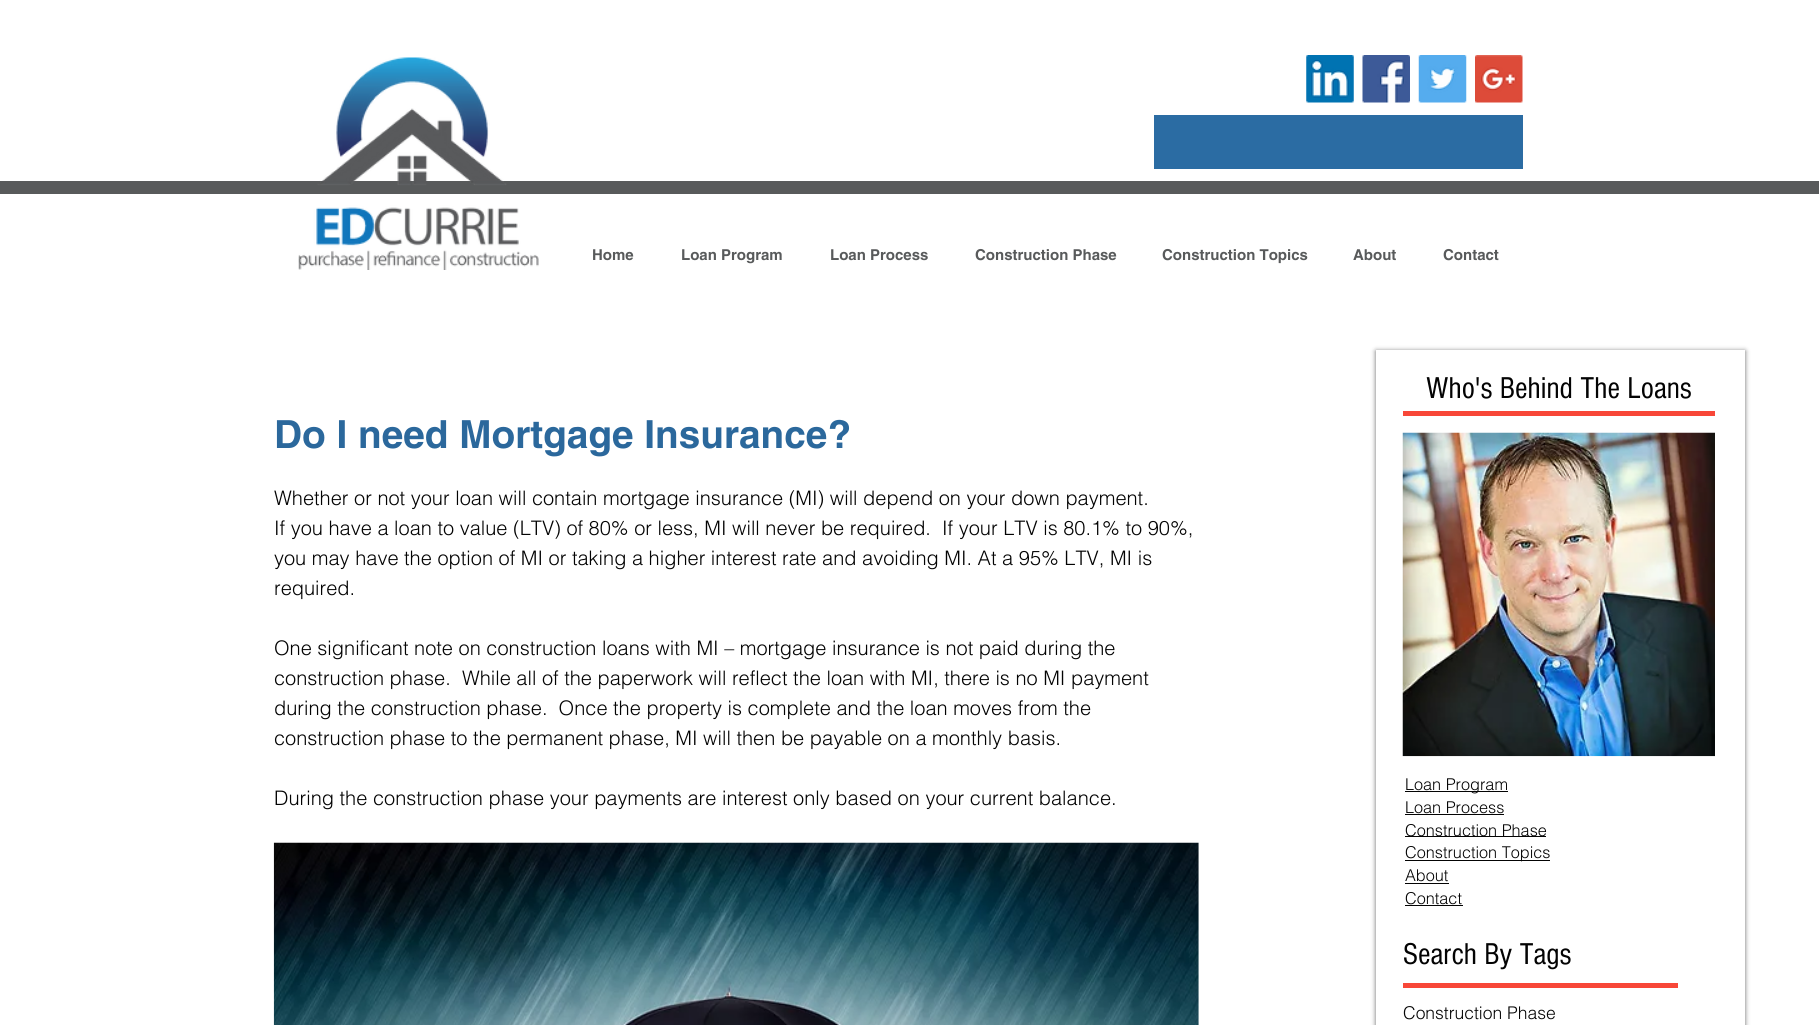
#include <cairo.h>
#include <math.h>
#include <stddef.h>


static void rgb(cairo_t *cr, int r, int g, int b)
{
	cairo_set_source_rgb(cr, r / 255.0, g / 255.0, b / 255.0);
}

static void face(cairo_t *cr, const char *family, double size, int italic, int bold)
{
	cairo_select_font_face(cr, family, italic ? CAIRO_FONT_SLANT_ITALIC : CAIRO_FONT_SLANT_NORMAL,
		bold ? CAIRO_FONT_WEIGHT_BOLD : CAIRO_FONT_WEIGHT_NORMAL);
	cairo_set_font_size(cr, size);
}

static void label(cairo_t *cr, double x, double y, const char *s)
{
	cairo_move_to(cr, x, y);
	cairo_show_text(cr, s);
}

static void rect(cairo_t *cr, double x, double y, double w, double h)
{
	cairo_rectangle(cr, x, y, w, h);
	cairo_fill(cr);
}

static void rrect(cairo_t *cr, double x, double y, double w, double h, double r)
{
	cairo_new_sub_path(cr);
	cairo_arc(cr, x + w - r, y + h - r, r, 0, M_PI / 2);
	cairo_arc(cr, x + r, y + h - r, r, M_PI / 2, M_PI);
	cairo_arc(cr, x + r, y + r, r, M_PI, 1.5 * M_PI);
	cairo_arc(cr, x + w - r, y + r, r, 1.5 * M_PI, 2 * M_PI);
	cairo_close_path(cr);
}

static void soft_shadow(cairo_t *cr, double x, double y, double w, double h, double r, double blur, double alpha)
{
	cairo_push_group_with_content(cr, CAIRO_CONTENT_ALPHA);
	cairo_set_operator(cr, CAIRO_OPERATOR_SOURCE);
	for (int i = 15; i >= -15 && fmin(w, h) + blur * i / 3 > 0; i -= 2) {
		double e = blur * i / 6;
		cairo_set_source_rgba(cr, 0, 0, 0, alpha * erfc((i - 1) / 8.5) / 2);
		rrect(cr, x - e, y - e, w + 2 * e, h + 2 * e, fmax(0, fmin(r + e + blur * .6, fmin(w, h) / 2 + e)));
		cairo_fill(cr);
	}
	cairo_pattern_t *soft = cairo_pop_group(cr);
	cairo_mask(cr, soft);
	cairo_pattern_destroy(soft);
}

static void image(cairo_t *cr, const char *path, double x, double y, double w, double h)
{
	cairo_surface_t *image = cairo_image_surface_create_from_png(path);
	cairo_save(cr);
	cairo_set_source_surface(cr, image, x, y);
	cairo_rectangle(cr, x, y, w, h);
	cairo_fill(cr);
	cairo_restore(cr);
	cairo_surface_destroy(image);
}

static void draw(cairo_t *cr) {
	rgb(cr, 255, 255, 255);
	cairo_paint(cr);
	rgb(cr, 88, 90, 91);
	rect(cr, 0, 181, 1819, 13);
	image(cr, "image0.png", 298, 57, 241, 213);
	image(cr, "image1.png", 1306, 55, 48, 48);
	image(cr, "image2.png", 1362, 55, 48, 48);
	image(cr, "image3.png", 1418, 55, 49, 48);
	image(cr, "image4.png", 1475, 55, 48, 48);
	rgb(cr, 43, 108, 163);
	rect(cr, 1154, 115, 369, 54);
	face(cr, "helvetica", 15, 0, 1);
	rgb(cr, 88, 90, 91);
	label(cr, 592, 260, "Home");
	label(cr, 681, 260, "Loan Program");
	label(cr, 830, 260, "Loan Process");
	label(cr, 975, 260, "Construction Phase");
	label(cr, 1162, 260, "Construction Topics");
	label(cr, 1353, 260, "About");
	label(cr, 1443, 260, "Contact");
	face(cr, "helvetica", 38.75, 0, 1);
	rgb(cr, 43, 104, 156);
	label(cr, 274, 448, "Do I need Mortgage Insurance?");
	face(cr, "helvetica Light", 20, 0, 0);
	rgb(cr, 3, 3, 3);
	label(cr, 274, 505, "Whether or not your loan will contain mortgage insurance (MI) will depend on your down payment.");
	label(cr, 274, 535, "If you have a loan to value (LTV) of 80% or less, MI will never be required.  If your LTV is 80.1% to 90%,");
	label(cr, 274, 565, "you may have the option of MI or taking a higher interest rate and avoiding MI. At a 95% LTV, MI is");
	label(cr, 274, 595, "required.");
	label(cr, 274, 655, "One significant note on construction loans with MI – mortgage insurance is not paid during the");
	label(cr, 274, 685, "construction phase.  While all of the paperwork will reflect the loan with MI, there is no MI payment");
	label(cr, 274, 715, "during the construction phase.  Once the property is complete and the loan moves from the");
	label(cr, 274, 745, "construction phase to the permanent phase, MI will then be payable on a monthly basis.");
	label(cr, 274, 805, "During the construction phase your payments are interest only based on your current balance.");
	image(cr, "image5.png", 273, 842, 926, 183);
	rgb(cr, 0, 0, 0);
	soft_shadow(cr, 1376, 351, 369, 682, 0, 2.5, 0.6);
	rgb(cr, 255, 255, 255);
	rect(cr, 1376, 350, 369, 675);
	face(cr, "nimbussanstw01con", 31.25, 0, 0);
	rgb(cr, 3, 3, 3);
	label(cr, 1426, 398, "Who's Behind The Loans");
	rgb(cr, 248, 71, 56);
	rect(cr, 1403, 411, 312, 5);
	image(cr, "image6.png", 1402, 432, 313, 325);
	rgb(cr, 3, 3, 3);
	rect(cr, 1405, 791, 103, 1);
	face(cr, "helvetica Light", 16.25, 0, 0);
	label(cr, 1405, 790, "Loan Program");
	label(cr, 1405, 813, "Loan Process");
	rect(cr, 1405, 814, 99, 1);
	rect(cr, 1405, 836, 141, 1);
	label(cr, 1405, 836, "Construction Phase");
	rect(cr, 1405, 860, 145, 1);
	label(cr, 1405, 858, "Construction Topics");
	label(cr, 1405, 881, "About");
	rect(cr, 1405, 883, 44, 1);
	label(cr, 1405, 904, "Contact");
	rect(cr, 1405, 905, 58, 1);
	face(cr, "nimbussanstw01con", 31.25, 0, 0);
	label(cr, 1403, 964, "Search By Tags");
	rgb(cr, 248, 71, 56);
	rect(cr, 1403, 983, 275, 5);
	face(cr, "helvetica Light", 17.5, 0, 0);
	rgb(cr, 3, 3, 3);
	label(cr, 1403, 1019, "Construction Phase");
}

int main(void) {
	cairo_surface_t *surface = cairo_image_surface_create(CAIRO_FORMAT_RGB24, 1819, 1025);
	cairo_t *cr = cairo_create(surface);
	cairo_font_options_t *options = cairo_font_options_create();
	cairo_font_options_set_hint_metrics(options, CAIRO_HINT_METRICS_OFF);
	cairo_font_options_set_hint_style(options, CAIRO_HINT_STYLE_NONE);
	cairo_set_font_options(cr, options);
	cairo_set_miter_limit(cr, 4);
	draw(cr);
	cairo_surface_write_to_png(surface, "render.png");
	cairo_font_options_destroy(options);
	cairo_destroy(cr);
	cairo_surface_destroy(surface);
	return 0;
}
